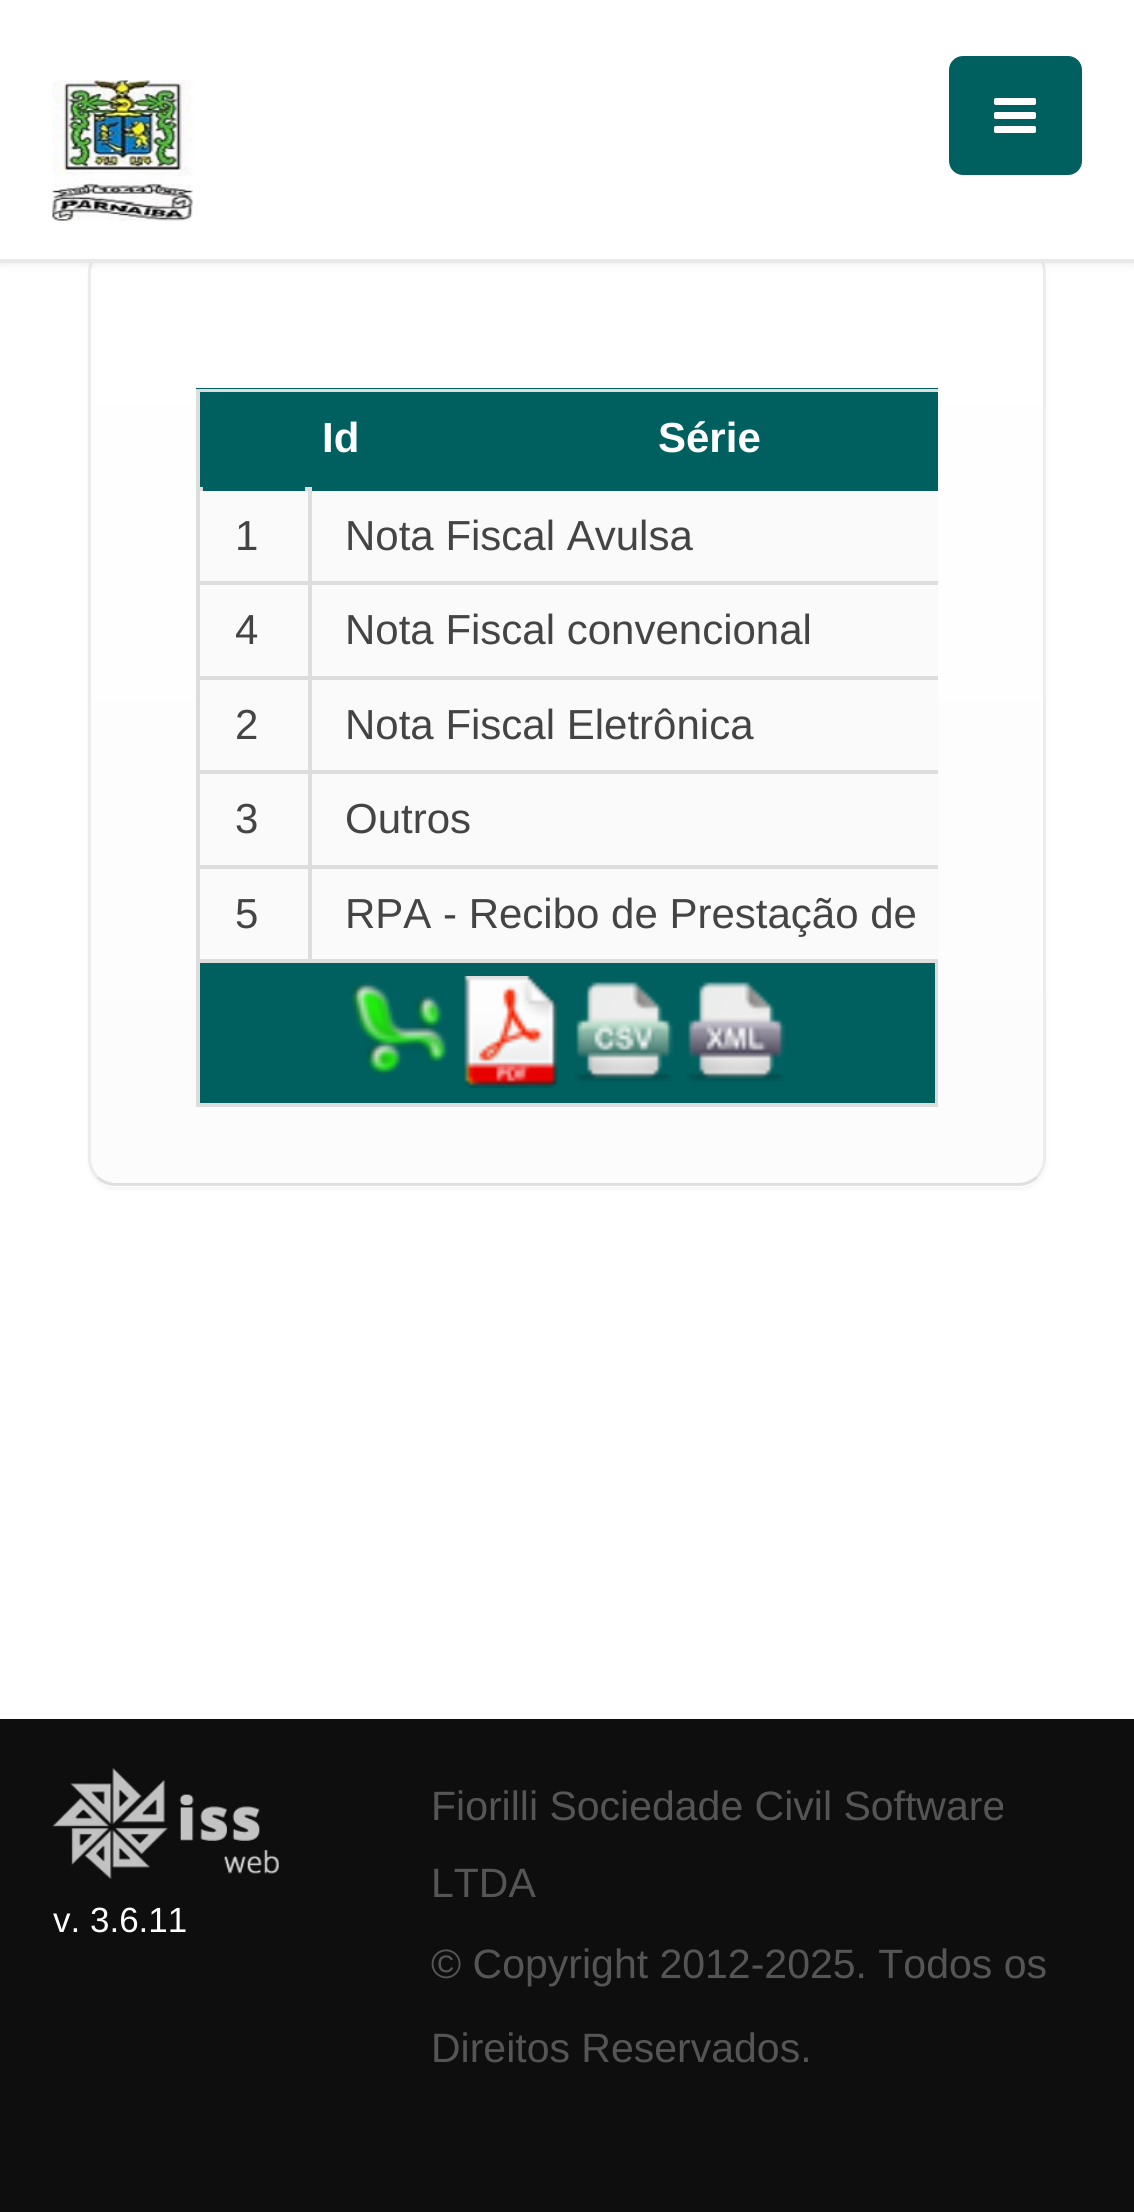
#include <cairo.h>
#include <math.h>
#include <stddef.h>


static void rgb(cairo_t *cr, int r, int g, int b)
{
	cairo_set_source_rgb(cr, r / 255.0, g / 255.0, b / 255.0);
}

static void face(cairo_t *cr, const char *family, double size, int italic, int bold)
{
	cairo_select_font_face(cr, family, italic ? CAIRO_FONT_SLANT_ITALIC : CAIRO_FONT_SLANT_NORMAL,
		bold ? CAIRO_FONT_WEIGHT_BOLD : CAIRO_FONT_WEIGHT_NORMAL);
	cairo_set_font_size(cr, size);
}

static void label(cairo_t *cr, double x, double y, const char *s)
{
	cairo_move_to(cr, x, y);
	cairo_show_text(cr, s);
}

static void rect(cairo_t *cr, double x, double y, double w, double h)
{
	cairo_rectangle(cr, x, y, w, h);
	cairo_fill(cr);
}

static void rrect(cairo_t *cr, double x, double y, double w, double h, double r)
{
	cairo_new_sub_path(cr);
	cairo_arc(cr, x + w - r, y + h - r, r, 0, M_PI / 2);
	cairo_arc(cr, x + r, y + h - r, r, M_PI / 2, M_PI);
	cairo_arc(cr, x + r, y + r, r, M_PI, 1.5 * M_PI);
	cairo_arc(cr, x + w - r, y + r, r, 1.5 * M_PI, 2 * M_PI);
	cairo_close_path(cr);
}

static void soft_shadow(cairo_t *cr, double x, double y, double w, double h, double r, double blur, double alpha)
{
	cairo_push_group_with_content(cr, CAIRO_CONTENT_ALPHA);
	cairo_set_operator(cr, CAIRO_OPERATOR_SOURCE);
	for (int i = 15; i >= -15 && fmin(w, h) + blur * i / 3 > 0; i -= 2) {
		double e = blur * i / 6;
		cairo_set_source_rgba(cr, 0, 0, 0, alpha * erfc((i - 1) / 8.5) / 2);
		rrect(cr, x - e, y - e, w + 2 * e, h + 2 * e, fmax(0, fmin(r + e + blur * .6, fmin(w, h) / 2 + e)));
		cairo_fill(cr);
	}
	cairo_pattern_t *soft = cairo_pop_group(cr);
	cairo_mask(cr, soft);
	cairo_pattern_destroy(soft);
}

static void image(cairo_t *cr, const char *path, double x, double y, double w, double h)
{
	cairo_surface_t *image = cairo_image_surface_create_from_png(path);
	cairo_save(cr);
	cairo_set_source_surface(cr, image, x, y);
	cairo_rectangle(cr, x, y, w, h);
	cairo_fill(cr);
	cairo_restore(cr);
	cairo_surface_destroy(image);
}

static void draw(cairo_t *cr) {
	cairo_pattern_t *gradient;
	rgb(cr, 255, 255, 255);
	cairo_paint(cr);
	rgb(cr, 0, 0, 0);
	soft_shadow(cr, 88, 249, 959, 941, 28, 2, 0.04);
	cairo_save(cr);
	rrect(cr, 88, 245, 959, 942, 28);
	cairo_clip(cr);
	gradient = cairo_pattern_create_linear(567, 245, 567, 1183);
	cairo_pattern_add_color_stop_rgba(gradient, 0.01, 1, 1, 1, 1);
	cairo_pattern_add_color_stop_rgba(gradient, 0.98, 0.988, 0.988, 0.988, 1);
	cairo_set_source(cr, gradient);
	cairo_pattern_destroy(gradient);
	cairo_new_path(cr);
	cairo_move_to(cr, 116, 245);
	cairo_line_to(cr, 1019, 245);
	cairo_curve_to(cr, 1034.5, 245, 1047, 257.5, 1047, 273);
	cairo_line_to(cr, 1047, 1183);
	cairo_line_to(cr, 88, 1183);
	cairo_line_to(cr, 88, 273);
	cairo_curve_to(cr, 88, 257.5, 100.5, 245, 116, 245);
	cairo_close_path(cr);
	cairo_fill(cr);
	cairo_restore(cr);
	rgb(cr, 236, 236, 236);
	cairo_new_path(cr);
	cairo_move_to(cr, 1046, 273);
	cairo_curve_to(cr, 1046, 258, 1034, 245, 1018, 245);
	cairo_curve_to(cr, 1032, 245, 1043, 258, 1043, 273);
	cairo_line_to(cr, 1043, 1158);
	cairo_curve_to(cr, 1043, 1165, 1040, 1171, 1036, 1176);
	cairo_line_to(cr, 1038, 1178);
	cairo_curve_to(cr, 1043, 1173, 1046, 1166, 1046, 1158);
	cairo_close_path(cr);
	cairo_fill(cr);
	cairo_save(cr);
	rrect(cr, 88, 245, 959, 942, 28);
	cairo_clip(cr);
	gradient = cairo_pattern_create_linear(567, 1183, 567, 2121);
	cairo_pattern_add_color_stop_rgba(gradient, 0.01, 1, 1, 1, 1);
	cairo_pattern_add_color_stop_rgba(gradient, 0.98, 0.988, 0.988, 0.988, 1);
	cairo_set_source(cr, gradient);
	cairo_pattern_destroy(gradient);
	rect(cr, 101, 1183, 933, 4);
	cairo_restore(cr);
	rgb(cr, 223, 223, 223);
	cairo_new_path(cr);
	cairo_move_to(cr, 1038, 1178);
	cairo_curve_to(cr, 1033, 1183, 1026, 1186, 1018, 1186);
	cairo_line_to(cr, 116, 1186);
	cairo_curve_to(cr, 108, 1186, 101, 1183, 96, 1178);
	cairo_line_to(cr, 98, 1176);
	cairo_curve_to(cr, 103, 1180, 109, 1183, 116, 1183);
	cairo_line_to(cr, 1018, 1183);
	cairo_curve_to(cr, 1025, 1183, 1031, 1180, 1036, 1176);
	cairo_close_path(cr);
	cairo_fill(cr);
	rgb(cr, 236, 236, 236);
	cairo_new_path(cr);
	cairo_move_to(cr, 116, 245);
	cairo_curve_to(cr, 102, 245, 91, 258, 91, 273);
	cairo_line_to(cr, 91, 1158);
	cairo_curve_to(cr, 91, 1165, 94, 1171, 98, 1176);
	cairo_line_to(cr, 96, 1178);
	cairo_curve_to(cr, 91, 1173, 88, 1166, 88, 1158);
	cairo_line_to(cr, 88, 273);
	cairo_curve_to(cr, 88, 258, 100, 245, 116, 245);
	cairo_close_path(cr);
	cairo_fill(cr);
	rgb(cr, 0, 0, 0);
	soft_shadow(cr, 0, -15, 1134, 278, 0, 5, 0.1);
	rgb(cr, 255, 255, 255);
	rect(cr, 0, 0, 1134, 259);
	rgb(cr, 233, 233, 233);
	rect(cr, 0, 259, 1134, 4);
	image(cr, "image0.png", 52, 80, 141, 141);
	rgb(cr, 0, 96, 96);
	rrect(cr, 949, 56, 133, 119, 14);
	cairo_fill(cr);
	image(cr, "image1.png", 994, 98, 42, 35);
	rect(cr, 196, 388, 742, 1);
	rgb(cr, 221, 221, 221);
	rect(cr, 196, 389, 742, 3);
	rect(cr, 196, 389, 4, 98);
	rgb(cr, 0, 96, 96);
	rect(cr, 200, 392, 738, 95);
	face(cr, "Liberation Sans", 42, 0, 1);
	rgb(cr, 255, 255, 255);
	label(cr, 322, 452, "Id");
	label(cr, 658, 452, "Série");
	rgb(cr, 221, 221, 221);
	rect(cr, 196, 487, 112, 4);
	rgb(cr, 0, 96, 96);
	rect(cr, 203, 487, 102, 4);
	rect(cr, 312, 487, 626, 4);
	rgb(cr, 250, 250, 250);
	rect(cr, 200, 491, 738, 468);
	rgb(cr, 221, 221, 221);
	rect(cr, 196, 959, 742, 4);
	rect(cr, 196, 487, 4, 476);
	face(cr, "Liberation Sans", 42, 0, 0);
	rgb(cr, 68, 68, 68);
	label(cr, 235, 550, "1");
	label(cr, 345, 550, "Nota Fiscal Avulsa");
	rgb(cr, 221, 221, 221);
	rect(cr, 196, 581, 742, 4);
	rgb(cr, 68, 68, 68);
	label(cr, 235, 644, "4");
	label(cr, 345, 644, "Nota Fiscal convencional");
	rgb(cr, 221, 221, 221);
	rect(cr, 196, 676, 742, 4);
	rgb(cr, 68, 68, 68);
	label(cr, 235, 739, "2");
	label(cr, 345, 739, "Nota Fiscal Eletrônica");
	rgb(cr, 221, 221, 221);
	rect(cr, 196, 770, 742, 4);
	rgb(cr, 68, 68, 68);
	label(cr, 235, 833, "3");
	label(cr, 345, 833, "Outros");
	rgb(cr, 221, 221, 221);
	rect(cr, 196, 865, 742, 4);
	rgb(cr, 68, 68, 68);
	label(cr, 235, 928, "5");
	rgb(cr, 221, 221, 221);
	rect(cr, 308, 487, 4, 476);
	rgb(cr, 68, 68, 68);
	label(cr, 345, 928, "RPA - Recibo de Prestação de");
	rgb(cr, 0, 96, 96);
	rect(cr, 200, 963, 735, 140);
	rgb(cr, 221, 221, 221);
	rect(cr, 935, 963, 3, 143);
	rect(cr, 196, 1103, 742, 4);
	rect(cr, 196, 963, 4, 143);
	image(cr, "image2.png", 349, 982, 99, 94);
	image(cr, "image3.png", 464, 976, 94, 112);
	image(cr, "image4.png", 574, 981, 100, 101);
	image(cr, "image5.png", 686, 981, 100, 101);
	rgb(cr, 14, 14, 14);
	rect(cr, 0, 1719, 1134, 493);
	image(cr, "image6.png", 52, 1768, 227, 111);
	face(cr, "Liberation Sans", 35, 0, 0);
	rgb(cr, 255, 255, 255);
	label(cr, 53, 1932, "v. 3.6.11");
	face(cr, "Liberation Sans", 41, 0, 0);
	rgb(cr, 85, 85, 85);
	label(cr, 431, 1820, "Fiorilli Sociedade Civil Software");
	label(cr, 431, 1897, "LTDA");
	label(cr, 431, 1978, "© Copyright 2012-2025. Todos os");
	label(cr, 431, 2062, "Direitos Reservados.");
}

int main(void) {
	cairo_surface_t *surface = cairo_image_surface_create(CAIRO_FORMAT_RGB24, 1134, 2212);
	cairo_t *cr = cairo_create(surface);
	cairo_font_options_t *options = cairo_font_options_create();
	cairo_font_options_set_hint_metrics(options, CAIRO_HINT_METRICS_OFF);
	cairo_font_options_set_hint_style(options, CAIRO_HINT_STYLE_NONE);
	cairo_set_font_options(cr, options);
	cairo_set_miter_limit(cr, 4);
	draw(cr);
	cairo_surface_write_to_png(surface, "render.png");
	cairo_font_options_destroy(options);
	cairo_destroy(cr);
	cairo_surface_destroy(surface);
	return 0;
}
